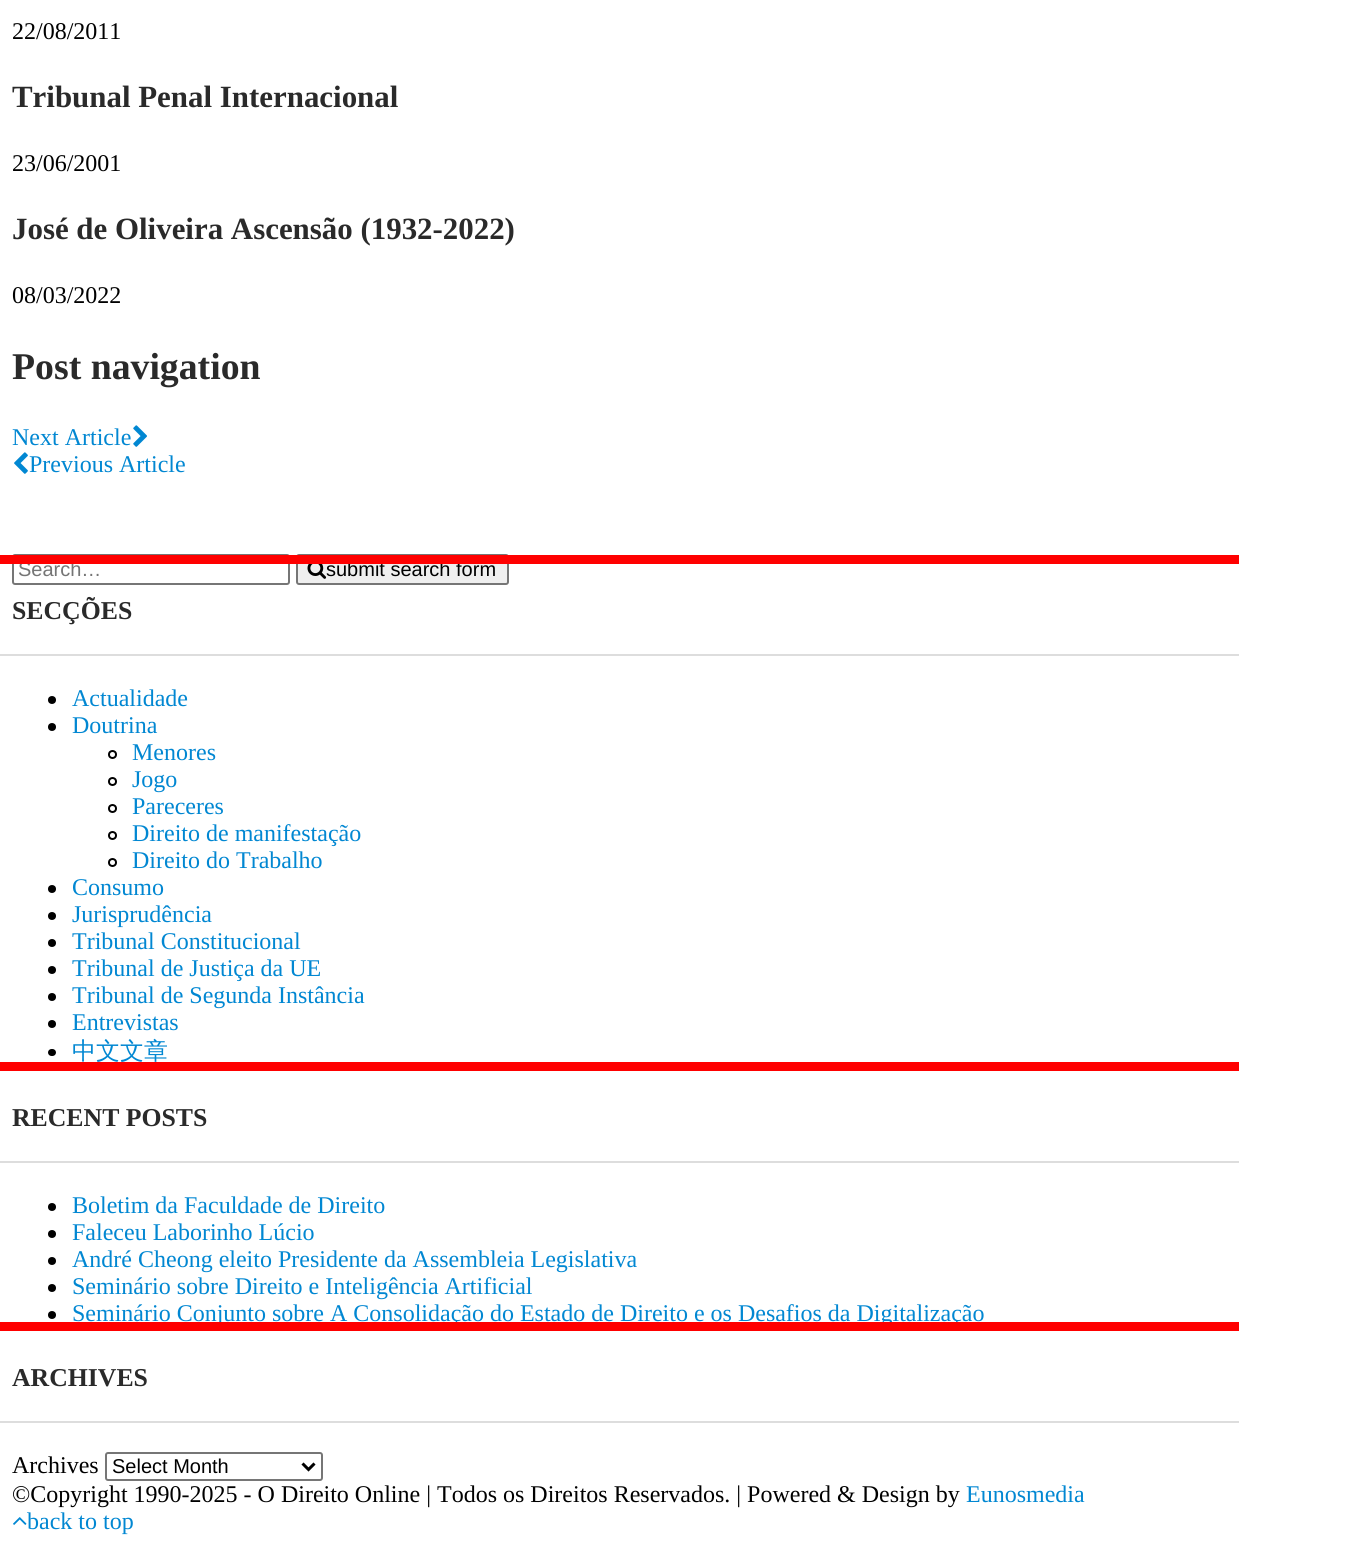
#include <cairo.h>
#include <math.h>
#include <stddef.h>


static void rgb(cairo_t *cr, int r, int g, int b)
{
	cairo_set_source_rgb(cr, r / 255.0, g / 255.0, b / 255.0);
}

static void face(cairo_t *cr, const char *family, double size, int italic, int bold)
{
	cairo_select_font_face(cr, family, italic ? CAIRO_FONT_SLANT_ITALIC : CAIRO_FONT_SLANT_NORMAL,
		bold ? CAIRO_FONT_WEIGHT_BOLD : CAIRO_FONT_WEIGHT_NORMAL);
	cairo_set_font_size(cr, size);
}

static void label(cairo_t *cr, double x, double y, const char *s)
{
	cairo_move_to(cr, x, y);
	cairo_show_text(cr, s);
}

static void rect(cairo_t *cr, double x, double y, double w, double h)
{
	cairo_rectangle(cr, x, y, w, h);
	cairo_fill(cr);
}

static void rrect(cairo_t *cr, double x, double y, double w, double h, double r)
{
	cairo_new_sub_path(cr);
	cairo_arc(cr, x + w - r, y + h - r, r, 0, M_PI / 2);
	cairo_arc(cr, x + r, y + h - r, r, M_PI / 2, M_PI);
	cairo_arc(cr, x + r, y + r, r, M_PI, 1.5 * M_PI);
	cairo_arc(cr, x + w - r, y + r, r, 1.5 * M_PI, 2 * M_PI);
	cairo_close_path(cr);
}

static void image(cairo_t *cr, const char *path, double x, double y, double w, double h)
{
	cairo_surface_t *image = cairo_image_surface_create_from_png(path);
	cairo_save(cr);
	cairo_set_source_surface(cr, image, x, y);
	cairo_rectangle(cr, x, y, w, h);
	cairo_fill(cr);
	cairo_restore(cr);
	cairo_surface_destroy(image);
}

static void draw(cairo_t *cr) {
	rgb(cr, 255, 255, 255);
	cairo_paint(cr);
	face(cr, "Liberation Serif", 24, 0, 0);
	rgb(cr, 0, 0, 0);
	label(cr, 12, 39, "22/08/2011");
	face(cr, "Liberation Serif", 30.9, 0, 1);
	rgb(cr, 42, 42, 42);
	label(cr, 12, 107, "Tribunal Penal Internacional");
	face(cr, "Liberation Serif", 24, 0, 0);
	rgb(cr, 0, 0, 0);
	label(cr, 12, 171, "23/06/2001");
	face(cr, "Liberation Serif", 30.9, 0, 1);
	rgb(cr, 42, 42, 42);
	label(cr, 12, 239, "José de Oliveira Ascensão (1932-2022)");
	face(cr, "Liberation Serif", 24, 0, 0);
	rgb(cr, 0, 0, 0);
	label(cr, 12, 303, "08/03/2022");
	face(cr, "Liberation Serif", 37.75, 0, 1);
	rgb(cr, 42, 42, 42);
	label(cr, 12, 379, "Post navigation");
	face(cr, "Liberation Serif", 24, 0, 0);
	rgb(cr, 1, 135, 210);
	label(cr, 12, 445, "Next Article");
	image(cr, "image0.png", 133, 425, 14, 22);
	image(cr, "image1.png", 14, 452, 14, 22);
	label(cr, 29, 472, "Previous Article");
	rrect(cr, 13, 555, 276, 29, 2);
	rgb(cr, 118, 118, 118);
	cairo_stroke(cr);
	face(cr, "Liberation Sans", 20, 0, 0);
	rgb(cr, 117, 117, 117);
	label(cr, 18, 576, "Search…");
	rgb(cr, 239, 239, 239);
	rrect(cr, 297, 555, 211, 29, 2);
	cairo_fill_preserve(cr);
	rgb(cr, 118, 118, 118);
	cairo_stroke(cr);
	rgb(cr, 0, 0, 0);
	label(cr, 326, 576, "submit search form");
	image(cr, "image2.png", 307, 564, 20, 15);
	rgb(cr, 255, 0, 0);
	rect(cr, 0, 555, 1239, 9);
	rgb(cr, 221, 221, 221);
	rect(cr, 0, 654, 1239, 2);
	face(cr, "Liberation Serif", 25.75, 0, 1);
	rgb(cr, 42, 42, 42);
	label(cr, 12, 619, "SECÇÕES");
	rgb(cr, 0, 0, 0);
	cairo_new_path(cr);
	cairo_arc(cr, 52, 700, 4, 0, 2 * M_PI);
	cairo_fill(cr);
	face(cr, "Liberation Serif", 24, 0, 0);
	rgb(cr, 1, 135, 210);
	label(cr, 72, 706, "Actualidade");
	rgb(cr, 0, 0, 0);
	cairo_new_path(cr);
	cairo_arc(cr, 52, 727, 4, 0, 2 * M_PI);
	cairo_fill(cr);
	rgb(cr, 1, 135, 210);
	label(cr, 72, 733, "Doutrina");
	cairo_new_path(cr);
	cairo_arc(cr, 112.5, 754.5, 3.5, 0, 2 * M_PI);
	rgb(cr, 0, 0, 0);
	cairo_stroke(cr);
	rgb(cr, 1, 135, 210);
	label(cr, 132, 760, "Menores");
	cairo_new_path(cr);
	cairo_arc(cr, 112.5, 781.5, 3.5, 0, 2 * M_PI);
	rgb(cr, 0, 0, 0);
	cairo_stroke(cr);
	rgb(cr, 1, 135, 210);
	label(cr, 132, 787, "Jogo");
	cairo_new_path(cr);
	cairo_arc(cr, 112.5, 808.5, 3.5, 0, 2 * M_PI);
	rgb(cr, 0, 0, 0);
	cairo_stroke(cr);
	rgb(cr, 1, 135, 210);
	label(cr, 132, 814, "Pareceres");
	cairo_new_path(cr);
	cairo_arc(cr, 112.5, 835.5, 3.5, 0, 2 * M_PI);
	rgb(cr, 0, 0, 0);
	cairo_stroke(cr);
	rgb(cr, 1, 135, 210);
	label(cr, 132, 841, "Direito de manifestação");
	cairo_new_path(cr);
	cairo_arc(cr, 112.5, 862.5, 3.5, 0, 2 * M_PI);
	rgb(cr, 0, 0, 0);
	cairo_stroke(cr);
	rgb(cr, 1, 135, 210);
	label(cr, 132, 868, "Direito do Trabalho");
	rgb(cr, 0, 0, 0);
	cairo_new_path(cr);
	cairo_arc(cr, 52, 889, 4, 0, 2 * M_PI);
	cairo_fill(cr);
	rgb(cr, 1, 135, 210);
	label(cr, 72, 895, "Consumo");
	rgb(cr, 0, 0, 0);
	cairo_new_path(cr);
	cairo_arc(cr, 52, 916, 4, 0, 2 * M_PI);
	cairo_fill(cr);
	rgb(cr, 1, 135, 210);
	label(cr, 72, 922, "Jurisprudência");
	rgb(cr, 0, 0, 0);
	cairo_new_path(cr);
	cairo_arc(cr, 52, 943, 4, 0, 2 * M_PI);
	cairo_fill(cr);
	rgb(cr, 1, 135, 210);
	label(cr, 72, 949, "Tribunal Constitucional");
	rgb(cr, 0, 0, 0);
	cairo_new_path(cr);
	cairo_arc(cr, 52, 970, 4, 0, 2 * M_PI);
	cairo_fill(cr);
	rgb(cr, 1, 135, 210);
	label(cr, 72, 976, "Tribunal de Justiça da UE");
	rgb(cr, 0, 0, 0);
	cairo_new_path(cr);
	cairo_arc(cr, 52, 997, 4, 0, 2 * M_PI);
	cairo_fill(cr);
	rgb(cr, 1, 135, 210);
	label(cr, 72, 1003, "Tribunal de Segunda Instância");
	rgb(cr, 0, 0, 0);
	cairo_new_path(cr);
	cairo_arc(cr, 52, 1024, 4, 0, 2 * M_PI);
	cairo_fill(cr);
	rgb(cr, 1, 135, 210);
	label(cr, 72, 1030, "Entrevistas");
	rgb(cr, 0, 0, 0);
	rrect(cr, 48, 1049, 8, 7, 3.5);
	cairo_fill(cr);
	face(cr, "WenQuanYi Zen Hei Medium", 24, 0, 0);
	rgb(cr, 1, 135, 210);
	label(cr, 72, 1059, "中文文章");
	rgb(cr, 255, 0, 0);
	rect(cr, 0, 1062, 1239, 9);
	rgb(cr, 221, 221, 221);
	rect(cr, 0, 1161, 1239, 2);
	face(cr, "Liberation Serif", 25.75, 0, 1);
	rgb(cr, 42, 42, 42);
	label(cr, 12, 1126, "RECENT POSTS");
	rgb(cr, 0, 0, 0);
	cairo_new_path(cr);
	cairo_arc(cr, 52, 1207, 4, 0, 2 * M_PI);
	cairo_fill(cr);
	face(cr, "Liberation Serif", 24, 0, 0);
	rgb(cr, 1, 135, 210);
	label(cr, 72, 1213, "Boletim da Faculdade de Direito");
	rgb(cr, 0, 0, 0);
	cairo_new_path(cr);
	cairo_arc(cr, 52, 1234, 4, 0, 2 * M_PI);
	cairo_fill(cr);
	rgb(cr, 1, 135, 210);
	label(cr, 72, 1240, "Faleceu Laborinho Lúcio");
	rgb(cr, 0, 0, 0);
	cairo_new_path(cr);
	cairo_arc(cr, 52, 1261, 4, 0, 2 * M_PI);
	cairo_fill(cr);
	rgb(cr, 1, 135, 210);
	label(cr, 72, 1267, "André Cheong eleito Presidente da Assembleia Legislativa");
	rgb(cr, 0, 0, 0);
	cairo_new_path(cr);
	cairo_arc(cr, 52, 1288, 4, 0, 2 * M_PI);
	cairo_fill(cr);
	rgb(cr, 1, 135, 210);
	label(cr, 72, 1294, "Seminário sobre Direito e Inteligência Artificial");
	rgb(cr, 0, 0, 0);
	cairo_new_path(cr);
	cairo_arc(cr, 52, 1315, 4, 0, 2 * M_PI);
	cairo_fill(cr);
	rgb(cr, 1, 135, 210);
	label(cr, 72, 1321, "Seminário Conjunto sobre A Consolidação do Estado de Direito e os Desafios da Digitalização");
	rgb(cr, 255, 0, 0);
	rect(cr, 0, 1322, 1239, 9);
	rgb(cr, 221, 221, 221);
	rect(cr, 0, 1421, 1239, 2);
	face(cr, "Liberation Serif", 25.75, 0, 1);
	rgb(cr, 42, 42, 42);
	label(cr, 12, 1386, "ARCHIVES");
	face(cr, "Liberation Serif", 24, 0, 0);
	rgb(cr, 0, 0, 0);
	label(cr, 12, 1473, "Archives");
	rrect(cr, 106, 1453, 216, 27, 2);
	rgb(cr, 118, 118, 118);
	cairo_stroke(cr);
	cairo_new_path(cr);
	cairo_move_to(cr, 302.5, 1463.5);
	cairo_line_to(cr, 308.5, 1469.5);
	cairo_line_to(cr, 314.5, 1463.5);
	rgb(cr, 0, 0, 0);
	cairo_set_line_width(cr, 3);
	cairo_stroke(cr);
	face(cr, "Liberation Sans", 20, 0, 0);
	label(cr, 112, 1473, "Select Month");
	face(cr, "Liberation Serif", 24, 0, 0);
	label(cr, 12, 1502, "©Copyright 1990-2025 - O Direito Online | Todos os Direitos Reservados. | Powered & Design by");
	rgb(cr, 1, 135, 210);
	label(cr, 966, 1502, "Eunosmedia");
	image(cr, "image3.png", 13, 1517, 14, 8);
	label(cr, 27, 1529, "back to top");
}

int main(void) {
	cairo_surface_t *surface = cairo_image_surface_create(CAIRO_FORMAT_RGB24, 1354, 1546);
	cairo_t *cr = cairo_create(surface);
	cairo_font_options_t *options = cairo_font_options_create();
	cairo_font_options_set_hint_metrics(options, CAIRO_HINT_METRICS_OFF);
	cairo_font_options_set_hint_style(options, CAIRO_HINT_STYLE_NONE);
	cairo_set_font_options(cr, options);
	cairo_set_miter_limit(cr, 4);
	draw(cr);
	cairo_surface_write_to_png(surface, "render.png");
	cairo_font_options_destroy(options);
	cairo_destroy(cr);
	cairo_surface_destroy(surface);
	return 0;
}
